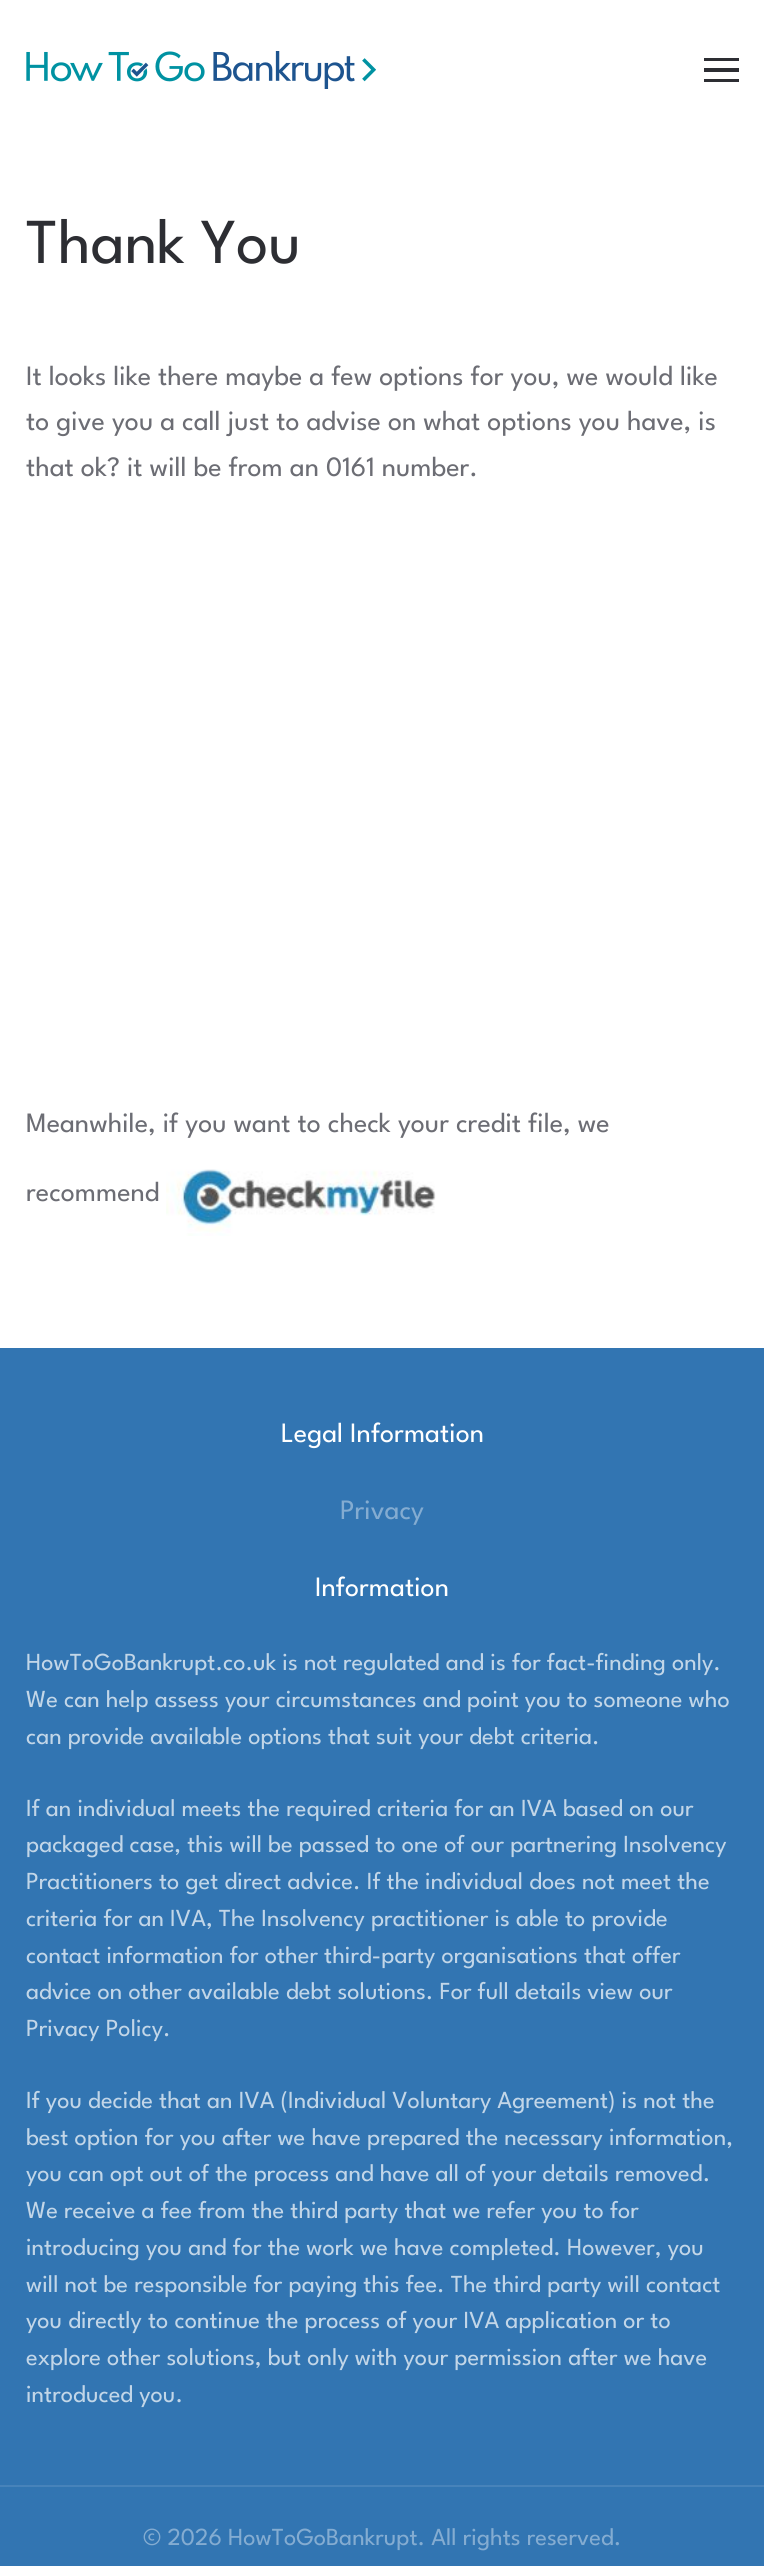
#include <cairo.h>
#include <math.h>
#include <stddef.h>


static void rgb(cairo_t *cr, int r, int g, int b)
{
	cairo_set_source_rgb(cr, r / 255.0, g / 255.0, b / 255.0);
}

static void face(cairo_t *cr, const char *family, double size, int italic, int bold)
{
	cairo_select_font_face(cr, family, italic ? CAIRO_FONT_SLANT_ITALIC : CAIRO_FONT_SLANT_NORMAL,
		bold ? CAIRO_FONT_WEIGHT_BOLD : CAIRO_FONT_WEIGHT_NORMAL);
	cairo_set_font_size(cr, size);
}

static void label(cairo_t *cr, double x, double y, const char *s)
{
	cairo_move_to(cr, x, y);
	cairo_show_text(cr, s);
}

static void rect(cairo_t *cr, double x, double y, double w, double h)
{
	cairo_rectangle(cr, x, y, w, h);
	cairo_fill(cr);
}

static void image(cairo_t *cr, const char *path, double x, double y, double w, double h)
{
	cairo_surface_t *image = cairo_image_surface_create_from_png(path);
	cairo_save(cr);
	cairo_set_source_surface(cr, image, x, y);
	cairo_rectangle(cr, x, y, w, h);
	cairo_fill(cr);
	cairo_restore(cr);
	cairo_surface_destroy(image);
}

static void draw(cairo_t *cr) {
	rgb(cr, 255, 255, 255);
	cairo_paint(cr);
	image(cr, "image0.png", 26, 51, 350, 38);
	rgb(cr, 45, 46, 51);
	rect(cr, 704, 58, 35, 3);
	rect(cr, 704, 68, 35, 4);
	rect(cr, 704, 79, 35, 3);
	face(cr, "League Spartan Thin", 64, 0, 0);
	label(cr, 26, 263, "Thank You");
	face(cr, "League Spartan Thin", 28, 0, 0);
	rgb(cr, 108, 109, 116);
	label(cr, 26, 385, "It looks like there maybe a few options for you, we would like");
	label(cr, 26, 430, "to give you a call just to advise on what options you have, is");
	label(cr, 26, 476, "that ok? it will be from an 0161 number.");
	label(cr, 26, 1132, "Meanwhile, if you want to check your credit file, we");
	label(cr, 26, 1201, "recommend");
	image(cr, "image1.png", 166, 1169, 270, 67);
	rgb(cr, 50, 117, 178);
	rect(cr, 0, 1348, 764, 1137);
	rgb(cr, 255, 255, 255);
	label(cr, 281, 1442, "Legal Information");
	rgb(cr, 132, 172, 209);
	label(cr, 340, 1519, "Privacy");
	rgb(cr, 255, 255, 255);
	label(cr, 315, 1596, "Information");
	face(cr, "League Spartan Thin", 24.5, 0, 0);
	rgb(cr, 194, 214, 232);
	label(cr, 26, 1670, "HowToGoBankrupt.co.uk is not regulated and is for fact-finding only.");
	label(cr, 26, 1707, "We can help assess your circumstances and point you to someone who");
	label(cr, 26, 1744, "can provide available options that suit your debt criteria.");
	label(cr, 26, 1816, "If an individual meets the required criteria for an IVA based on our");
	label(cr, 26, 1852, "packaged case, this will be passed to one of our partnering Insolvency");
	label(cr, 26, 1889, "Practitioners to get direct advice. If the individual does not meet the");
	label(cr, 26, 1926, "criteria for an IVA, The Insolvency practitioner is able to provide");
	label(cr, 26, 1963, "contact information for other third-party organisations that offer");
	label(cr, 26, 1999, "advice on other available debt solutions. For full details view our");
	label(cr, 26, 2036, "Privacy Policy.");
	label(cr, 26, 2108, "If you decide that an IVA (Individual Voluntary Agreement) is not the");
	label(cr, 26, 2145, "best option for you after we have prepared the necessary information,");
	label(cr, 26, 2181, "you can opt out of the process and have all of your details removed.");
	label(cr, 26, 2218, "We receive a fee from the third party that we refer you to for");
	label(cr, 26, 2255, "introducing you and for the work we have completed. However, you");
	label(cr, 26, 2292, "will not be responsible for paying this fee. The third party will contact");
	label(cr, 26, 2328, "you directly to continue the process of your IVA application or to");
	label(cr, 26, 2365, "explore other solutions, but only with your permission after we have");
	label(cr, 26, 2402, "introduced you.");
	rgb(cr, 71, 131, 186);
	rect(cr, 0, 2485, 764, 2);
	rgb(cr, 50, 117, 178);
	rect(cr, 0, 2487, 764, 79);
	rgb(cr, 132, 172, 209);
	label(cr, 143, 2545, "© 2026 HowToGoBankrupt. All rights reserved.");
}

int main(void) {
	cairo_surface_t *surface = cairo_image_surface_create(CAIRO_FORMAT_RGB24, 764, 2566);
	cairo_t *cr = cairo_create(surface);
	cairo_font_options_t *options = cairo_font_options_create();
	cairo_font_options_set_hint_metrics(options, CAIRO_HINT_METRICS_OFF);
	cairo_font_options_set_hint_style(options, CAIRO_HINT_STYLE_NONE);
	cairo_set_font_options(cr, options);
	cairo_set_miter_limit(cr, 4);
	draw(cr);
	cairo_surface_write_to_png(surface, "render.png");
	cairo_font_options_destroy(options);
	cairo_destroy(cr);
	cairo_surface_destroy(surface);
	return 0;
}
